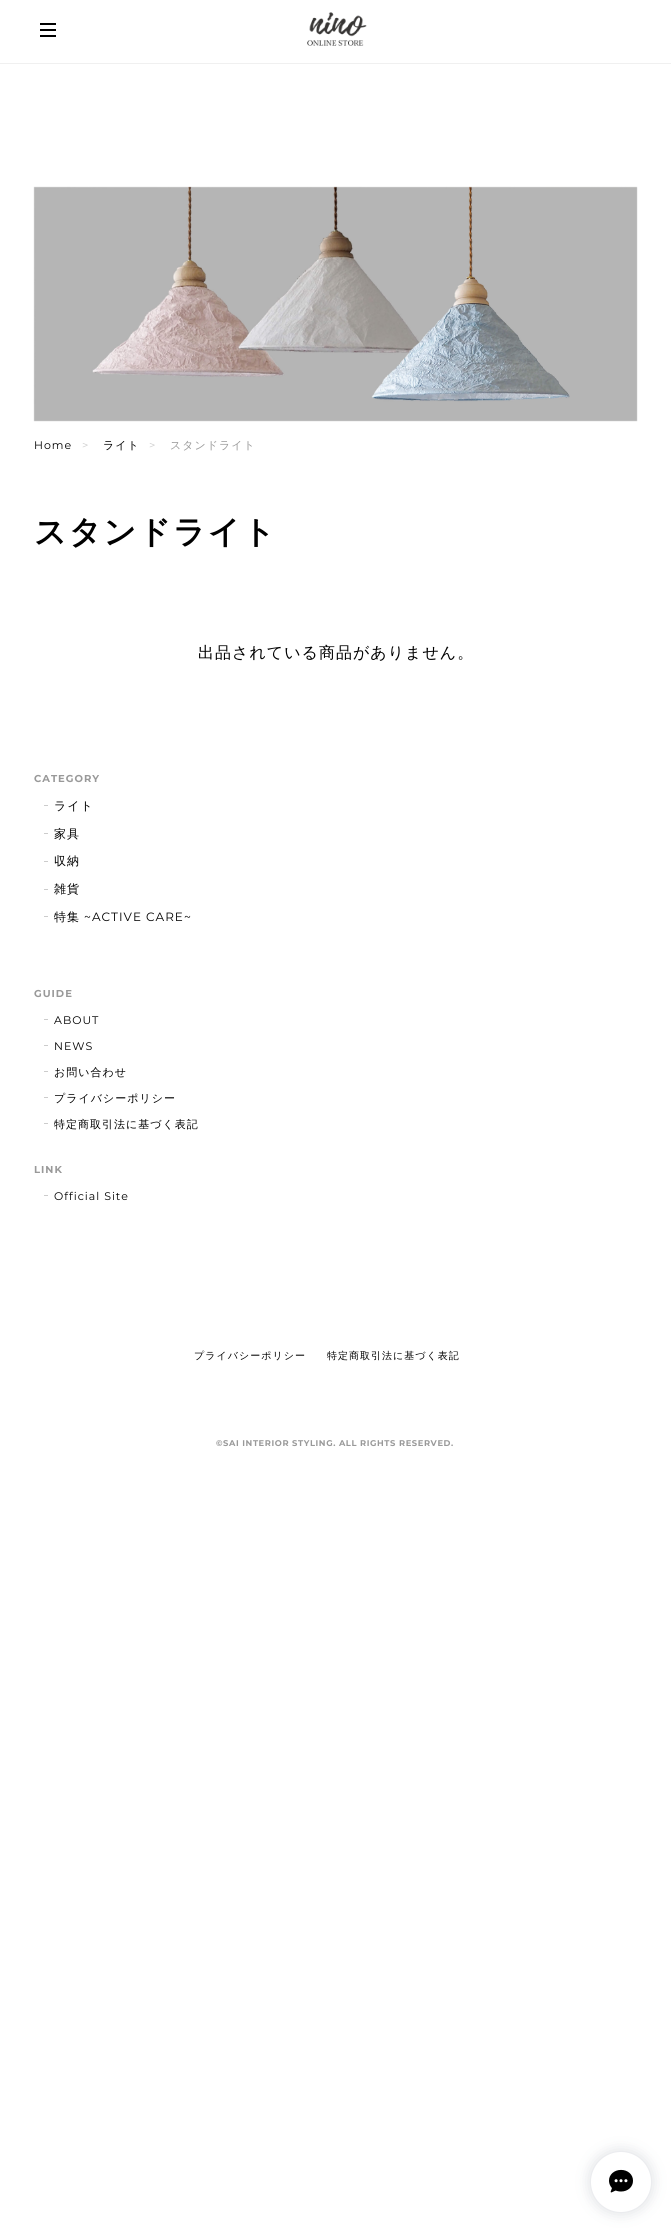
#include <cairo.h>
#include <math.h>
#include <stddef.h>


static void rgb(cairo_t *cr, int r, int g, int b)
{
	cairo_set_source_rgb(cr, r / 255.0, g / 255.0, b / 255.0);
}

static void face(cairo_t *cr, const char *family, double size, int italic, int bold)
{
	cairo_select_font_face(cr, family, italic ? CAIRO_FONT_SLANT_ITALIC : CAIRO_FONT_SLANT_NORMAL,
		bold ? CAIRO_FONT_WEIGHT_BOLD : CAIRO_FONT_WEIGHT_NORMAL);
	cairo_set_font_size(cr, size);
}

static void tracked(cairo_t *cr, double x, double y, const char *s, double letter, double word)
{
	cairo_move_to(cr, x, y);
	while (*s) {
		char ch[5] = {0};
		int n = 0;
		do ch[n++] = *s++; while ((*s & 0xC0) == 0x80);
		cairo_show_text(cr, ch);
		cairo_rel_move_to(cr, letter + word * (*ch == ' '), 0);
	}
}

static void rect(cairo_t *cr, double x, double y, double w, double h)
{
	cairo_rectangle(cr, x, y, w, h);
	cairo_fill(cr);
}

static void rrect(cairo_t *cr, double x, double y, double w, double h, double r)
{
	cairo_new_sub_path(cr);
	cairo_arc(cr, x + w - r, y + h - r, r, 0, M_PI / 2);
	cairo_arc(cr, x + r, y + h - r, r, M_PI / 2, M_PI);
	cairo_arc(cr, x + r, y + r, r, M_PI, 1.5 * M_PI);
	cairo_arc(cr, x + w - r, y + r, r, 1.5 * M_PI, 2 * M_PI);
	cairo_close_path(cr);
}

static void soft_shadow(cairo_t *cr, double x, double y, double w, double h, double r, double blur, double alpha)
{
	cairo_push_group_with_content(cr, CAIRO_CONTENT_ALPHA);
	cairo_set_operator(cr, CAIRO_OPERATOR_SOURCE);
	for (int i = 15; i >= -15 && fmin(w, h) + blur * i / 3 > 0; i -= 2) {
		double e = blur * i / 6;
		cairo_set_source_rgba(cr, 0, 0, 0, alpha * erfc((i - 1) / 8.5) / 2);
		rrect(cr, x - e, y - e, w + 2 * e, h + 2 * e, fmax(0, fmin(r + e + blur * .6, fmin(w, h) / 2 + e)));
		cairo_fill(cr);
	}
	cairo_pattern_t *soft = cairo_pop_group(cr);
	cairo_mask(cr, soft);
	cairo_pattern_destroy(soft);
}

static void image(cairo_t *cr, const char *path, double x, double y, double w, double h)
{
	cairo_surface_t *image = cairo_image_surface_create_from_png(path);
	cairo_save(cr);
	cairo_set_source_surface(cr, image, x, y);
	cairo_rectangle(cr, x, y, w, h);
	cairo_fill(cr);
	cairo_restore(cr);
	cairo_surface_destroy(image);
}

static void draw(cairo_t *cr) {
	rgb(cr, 255, 255, 255);
	cairo_paint(cr);
	rgb(cr, 240, 240, 240);
	rect(cr, 0, 63, 671, 1);
	rgb(cr, 0, 0, 0);
	rect(cr, 40, 23, 16, 2);
	rect(cr, 40, 29, 16, 2);
	rect(cr, 40, 35, 16, 2);
	image(cr, "image0.png", 307, 12, 60, 34);
	image(cr, "image1.png", 33, 186, 605, 236);
	face(cr, "Montserrat", 11, 0, 0);
	tracked(cr, 34, 449, "Home", 1, 0);
	rgb(cr, 204, 204, 204);
	tracked(cr, 82, 449, ">", 1, 0);
	face(cr, "WenQuanYi Zen Hei Medium", 11, 0, 0);
	rgb(cr, 0, 0, 0);
	tracked(cr, 103, 449, "ライト", 1, 0);
	face(cr, "Montserrat", 11, 0, 0);
	rgb(cr, 204, 204, 204);
	tracked(cr, 149, 449, ">", 1, 0);
	face(cr, "WenQuanYi Zen Hei Medium", 11, 0, 0);
	rgb(cr, 153, 153, 153);
	tracked(cr, 170, 449, "スタンドライト", 1, 0);
	face(cr, "WenQuanYi Zen Hei", 32, 0, 1);
	rgb(cr, 0, 0, 0);
	tracked(cr, 34, 543, "スタンドライト", 2, 0);
	face(cr, "WenQuanYi Zen Hei Medium", 16, 0, 0);
	tracked(cr, 198, 658, "出品されている商品がありません。", 1, 0);
	face(cr, "Montserrat", 10, 0, 1);
	rgb(cr, 153, 153, 153);
	tracked(cr, 34, 782, "CATEGORY", 1, 0);
	rgb(cr, 204, 204, 204);
	rect(cr, 44, 805, 4, 1);
	face(cr, "WenQuanYi Zen Hei Medium", 12, 0, 0);
	rgb(cr, 0, 0, 0);
	tracked(cr, 54, 810, "ライト", 1, 0);
	rgb(cr, 204, 204, 204);
	rect(cr, 44, 833, 4, 1);
	rgb(cr, 0, 0, 0);
	tracked(cr, 54, 838, "家具", 1, 0);
	rgb(cr, 204, 204, 204);
	rect(cr, 44, 861, 4, 1);
	rgb(cr, 0, 0, 0);
	tracked(cr, 54, 865, "収納", 1, 0);
	rgb(cr, 204, 204, 204);
	rect(cr, 44, 889, 4, 1);
	rgb(cr, 0, 0, 0);
	tracked(cr, 54, 893, "雑貨", 1, 0);
	rgb(cr, 204, 204, 204);
	rect(cr, 44, 916, 4, 1);
	rgb(cr, 0, 0, 0);
	tracked(cr, 54, 921, "特集", 1, 0);
	face(cr, "Montserrat", 12, 0, 0);
	tracked(cr, 84, 921, "~ACTIVE CARE~", 1, 0);
	face(cr, "Montserrat", 10, 0, 1);
	rgb(cr, 153, 153, 153);
	tracked(cr, 34, 997, "GUIDE", 1, 0);
	rgb(cr, 204, 204, 204);
	rect(cr, 44, 1019, 4, 1);
	face(cr, "Montserrat", 11, 0, 0);
	rgb(cr, 0, 0, 0);
	tracked(cr, 54, 1024, "ABOUT", 1, 0);
	rgb(cr, 204, 204, 204);
	rect(cr, 44, 1045, 4, 1);
	rgb(cr, 0, 0, 0);
	tracked(cr, 54, 1050, "NEWS", 1, 0);
	rgb(cr, 204, 204, 204);
	rect(cr, 44, 1071, 4, 1);
	face(cr, "WenQuanYi Zen Hei Medium", 11, 0, 0);
	rgb(cr, 0, 0, 0);
	tracked(cr, 54, 1076, "お問い合わせ", 1, 0);
	rgb(cr, 204, 204, 204);
	rect(cr, 44, 1097, 4, 1);
	rgb(cr, 0, 0, 0);
	tracked(cr, 54, 1102, "プライバシーポリシー", 1, 0);
	rgb(cr, 204, 204, 204);
	rect(cr, 44, 1123, 4, 1);
	rgb(cr, 0, 0, 0);
	tracked(cr, 54, 1128, "特定商取引法に基づく表記", 1, 0);
	face(cr, "Montserrat", 10, 0, 1);
	rgb(cr, 153, 153, 153);
	tracked(cr, 34, 1173, "LINK", 1, 0);
	rgb(cr, 204, 204, 204);
	rect(cr, 44, 1195, 4, 1);
	face(cr, "Montserrat", 11, 0, 0);
	rgb(cr, 0, 0, 0);
	tracked(cr, 54, 1200, "Official Site", 1, 0);
	face(cr, "WenQuanYi Zen Hei Medium", 10, 0, 0);
	tracked(cr, 194, 1359, "プライバシーポリシー", 1, 0);
	tracked(cr, 327, 1359, "特定商取引法に基づく表記", 1, 0);
	face(cr, "Montserrat", 8.3, 0, 1);
	rgb(cr, 153, 153, 153);
	tracked(cr, 216, 1446, "©SAI INTERIOR STYLING. ALL RIGHTS RESERVED.", 0.6, 0);
	rgb(cr, 51, 66, 88);
	soft_shadow(cr, 591, 2152, 60, 60, 30, 7.5, 0.2);
	rgb(cr, 255, 255, 255);
	cairo_arc(cr, 621, 2182, 30, 0, 2 * M_PI);
	cairo_fill(cr);
	image(cr, "image2.png", 609, 2169, 24, 24);
}

int main(void) {
	cairo_surface_t *surface = cairo_image_surface_create(CAIRO_FORMAT_RGB24, 671, 2232);
	cairo_t *cr = cairo_create(surface);
	cairo_font_options_t *options = cairo_font_options_create();
	cairo_font_options_set_hint_metrics(options, CAIRO_HINT_METRICS_OFF);
	cairo_font_options_set_hint_style(options, CAIRO_HINT_STYLE_NONE);
	cairo_set_font_options(cr, options);
	cairo_set_miter_limit(cr, 4);
	draw(cr);
	cairo_surface_write_to_png(surface, "render.png");
	cairo_font_options_destroy(options);
	cairo_destroy(cr);
	cairo_surface_destroy(surface);
	return 0;
}
